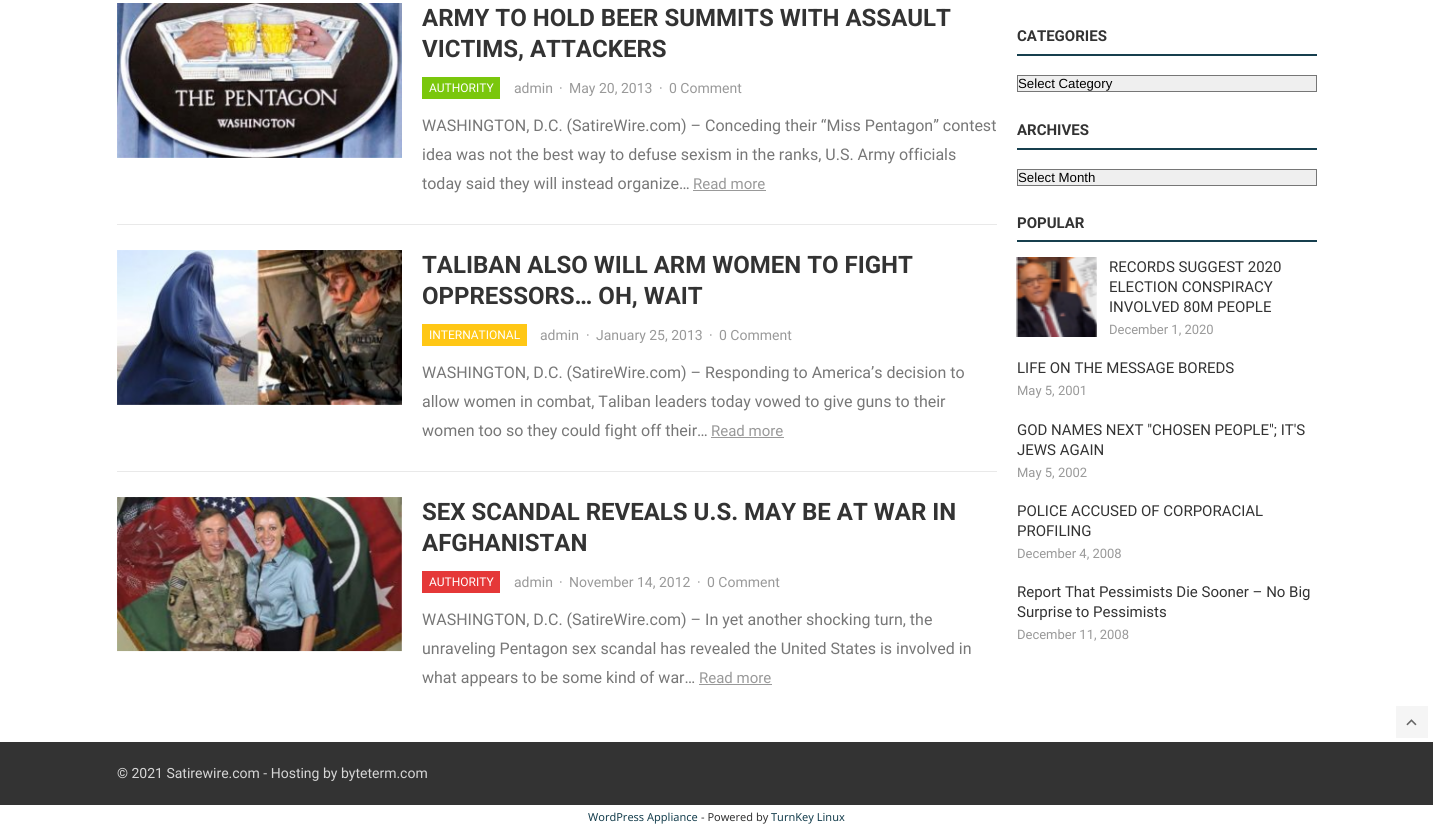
#include <cairo.h>
#include <math.h>
#include <stddef.h>


static void rgb(cairo_t *cr, int r, int g, int b)
{
	cairo_set_source_rgb(cr, r / 255.0, g / 255.0, b / 255.0);
}

static void face(cairo_t *cr, const char *family, double size, int italic, int bold)
{
	cairo_select_font_face(cr, family, italic ? CAIRO_FONT_SLANT_ITALIC : CAIRO_FONT_SLANT_NORMAL,
		bold ? CAIRO_FONT_WEIGHT_BOLD : CAIRO_FONT_WEIGHT_NORMAL);
	cairo_set_font_size(cr, size);
}

static void label(cairo_t *cr, double x, double y, const char *s)
{
	cairo_move_to(cr, x, y);
	cairo_show_text(cr, s);
}

static void rect(cairo_t *cr, double x, double y, double w, double h)
{
	cairo_rectangle(cr, x, y, w, h);
	cairo_fill(cr);
}

static void image(cairo_t *cr, const char *path, double x, double y, double w, double h)
{
	cairo_surface_t *image = cairo_image_surface_create_from_png(path);
	cairo_save(cr);
	cairo_set_source_surface(cr, image, x, y);
	cairo_rectangle(cr, x, y, w, h);
	cairo_fill(cr);
	cairo_restore(cr);
	cairo_surface_destroy(image);
}

static void draw(cairo_t *cr) {
	rgb(cr, 255, 255, 255);
	cairo_paint(cr);
	rgb(cr, 233, 233, 233);
	rect(cr, 117, 224, 880, 1);
	image(cr, "image0.png", 117, 3, 285, 155);
	face(cr, "Roboto", 24, 0, 1);
	rgb(cr, 51, 51, 51);
	label(cr, 422, 26, "ARMY TO HOLD BEER SUMMITS WITH ASSAULT");
	label(cr, 422, 57, "VICTIMS, ATTACKERS");
	rgb(cr, 122, 199, 12);
	rect(cr, 422, 77, 78, 22);
	face(cr, "Roboto", 12, 0, 0);
	rgb(cr, 255, 255, 255);
	label(cr, 429, 92, "AUTHORITY");
	face(cr, "Roboto", 14, 0, 0);
	rgb(cr, 153, 153, 153);
	label(cr, 514, 93, "admin");
	label(cr, 559, 93, "·");
	label(cr, 569, 93, "May 20, 2013");
	label(cr, 659, 93, "·");
	label(cr, 669, 93, "0 Comment");
	face(cr, "Roboto", 16, 0, 0);
	rgb(cr, 119, 119, 119);
	label(cr, 422, 131, "WASHINGTON, D.C. (SatireWire.com) – Conceding their “Miss Pentagon” contest");
	label(cr, 422, 160, "idea was not the best way to defuse sexism in the ranks, U.S. Army officials");
	label(cr, 422, 189, "today said they will instead organize…");
	face(cr, "Roboto", 15, 0, 0);
	rgb(cr, 153, 153, 153);
	label(cr, 693, 189, "Read more");
	rect(cr, 693, 190, 73, 1);
	rgb(cr, 233, 233, 233);
	rect(cr, 117, 471, 880, 1);
	image(cr, "image1.png", 117, 250, 285, 155);
	face(cr, "Roboto", 24, 0, 1);
	rgb(cr, 51, 51, 51);
	label(cr, 422, 273, "TALIBAN ALSO WILL ARM WOMEN TO FIGHT");
	label(cr, 422, 304, "OPPRESSORS… OH, WAIT");
	rgb(cr, 255, 199, 21);
	rect(cr, 422, 324, 105, 22);
	face(cr, "Roboto", 12, 0, 0);
	rgb(cr, 255, 255, 255);
	label(cr, 429, 339, "INTERNATIONAL");
	face(cr, "Roboto", 14, 0, 0);
	rgb(cr, 153, 153, 153);
	label(cr, 540, 340, "admin");
	label(cr, 586, 340, "·");
	label(cr, 596, 340, "January 25, 2013");
	label(cr, 709, 340, "·");
	label(cr, 719, 340, "0 Comment");
	face(cr, "Roboto", 16, 0, 0);
	rgb(cr, 119, 119, 119);
	label(cr, 422, 378, "WASHINGTON, D.C. (SatireWire.com) – Responding to America’s decision to");
	label(cr, 422, 407, "allow women in combat, Taliban leaders today vowed to give guns to their");
	label(cr, 422, 436, "women too so they could fight off their…");
	face(cr, "Roboto", 15, 0, 0);
	rgb(cr, 153, 153, 153);
	label(cr, 711, 436, "Read more");
	rect(cr, 711, 437, 73, 1);
	image(cr, "image2.png", 117, 497, 285, 155);
	face(cr, "Roboto", 24, 0, 1);
	rgb(cr, 51, 51, 51);
	label(cr, 422, 520, "SEX SCANDAL REVEALS U.S. MAY BE AT WAR IN");
	label(cr, 422, 551, "AFGHANISTAN");
	rgb(cr, 229, 56, 56);
	rect(cr, 422, 571, 78, 22);
	face(cr, "Roboto", 12, 0, 0);
	rgb(cr, 255, 255, 255);
	label(cr, 429, 586, "AUTHORITY");
	face(cr, "Roboto", 14, 0, 0);
	rgb(cr, 153, 153, 153);
	label(cr, 514, 587, "admin");
	label(cr, 559, 587, "·");
	label(cr, 569, 587, "November 14, 2012");
	label(cr, 697, 587, "·");
	label(cr, 707, 587, "0 Comment");
	face(cr, "Roboto", 16, 0, 0);
	rgb(cr, 119, 119, 119);
	label(cr, 422, 625, "WASHINGTON, D.C. (SatireWire.com) – In yet another shocking turn, the");
	label(cr, 422, 654, "unraveling Pentagon sex scandal has revealed the United States is involved in");
	label(cr, 422, 683, "what appears to be some kind of war…");
	face(cr, "Roboto", 15, 0, 0);
	rgb(cr, 153, 153, 153);
	label(cr, 699, 683, "Read more");
	rect(cr, 699, 684, 73, 1);
	rgb(cr, 22, 63, 78);
	rect(cr, 1017, 54, 300, 2);
	face(cr, "Roboto", 15, 0, 1);
	rgb(cr, 51, 51, 51);
	label(cr, 1017, 41, "CATEGORIES");
	rgb(cr, 239, 239, 239);
	cairo_rectangle(cr, 1017.5, 75.5, 299, 16);
	cairo_fill_preserve(cr);
	rgb(cr, 118, 118, 118);
	cairo_set_line_width(cr, 1);
	cairo_stroke(cr);
	face(cr, "Liberation Sans", 13.25, 0, 0);
	rgb(cr, 0, 0, 0);
	label(cr, 1018, 88, "Select Category");
	rgb(cr, 22, 63, 78);
	rect(cr, 1017, 148, 300, 2);
	face(cr, "Roboto", 15, 0, 1);
	rgb(cr, 51, 51, 51);
	label(cr, 1017, 135, "ARCHIVES");
	rgb(cr, 239, 239, 239);
	cairo_rectangle(cr, 1017.5, 169.5, 299, 16);
	cairo_fill_preserve(cr);
	rgb(cr, 118, 118, 118);
	cairo_stroke(cr);
	face(cr, "Liberation Sans", 13.25, 0, 0);
	rgb(cr, 0, 0, 0);
	label(cr, 1018, 182, "Select Month");
	rgb(cr, 22, 63, 78);
	rect(cr, 1017, 240, 300, 2);
	face(cr, "Roboto", 15, 0, 1);
	rgb(cr, 51, 51, 51);
	label(cr, 1017, 228, "POPULAR");
	image(cr, "image3.png", 1016, 257, 81, 80);
	face(cr, "Roboto", 15, 0, 0);
	label(cr, 1109, 272, "RECORDS SUGGEST 2020");
	label(cr, 1109, 292, "ELECTION CONSPIRACY");
	label(cr, 1109, 312, "INVOLVED 80M PEOPLE");
	face(cr, "Roboto", 13, 0, 0);
	rgb(cr, 153, 153, 153);
	label(cr, 1109, 334, "December 1, 2020");
	face(cr, "Roboto", 15, 0, 0);
	rgb(cr, 51, 51, 51);
	label(cr, 1017, 373, "LIFE ON THE MESSAGE BOREDS");
	face(cr, "Roboto", 13, 0, 0);
	rgb(cr, 153, 153, 153);
	label(cr, 1017, 395, "May 5, 2001");
	face(cr, "Roboto", 15, 0, 0);
	rgb(cr, 51, 51, 51);
	label(cr, 1017, 435, "GOD NAMES NEXT \"CHOSEN PEOPLE\"; IT'S");
	label(cr, 1017, 455, "JEWS AGAIN");
	face(cr, "Roboto", 13, 0, 0);
	rgb(cr, 153, 153, 153);
	label(cr, 1017, 477, "May 5, 2002");
	face(cr, "Roboto", 15, 0, 0);
	rgb(cr, 51, 51, 51);
	label(cr, 1017, 516, "POLICE ACCUSED OF CORPORACIAL");
	label(cr, 1017, 536, "PROFILING");
	face(cr, "Roboto", 13, 0, 0);
	rgb(cr, 153, 153, 153);
	label(cr, 1017, 558, "December 4, 2008");
	face(cr, "Roboto", 15, 0, 0);
	rgb(cr, 51, 51, 51);
	label(cr, 1017, 597, "Report That Pessimists Die Sooner – No Big");
	label(cr, 1017, 617, "Surprise to Pessimists");
	face(cr, "Roboto", 13, 0, 0);
	rgb(cr, 153, 153, 153);
	label(cr, 1017, 639, "December 11, 2008");
	rgb(cr, 51, 51, 51);
	rect(cr, 0, 742, 1433, 63);
	face(cr, "Roboto", 14, 0, 0);
	rgb(cr, 214, 214, 214);
	label(cr, 117, 778, "© 2021 Satirewire.com - Hosting by byteterm.com");
	rgb(cr, 245, 245, 245);
	rect(cr, 1396, 706, 32, 32);
	image(cr, "image4.png", 1406, 719, 11, 7);
	face(cr, "Noto Sans", 11, 0, 0);
	rgb(cr, 22, 63, 78);
	label(cr, 588, 821, "WordPress Appliance");
	rgb(cr, 51, 51, 51);
	label(cr, 701, 821, "- Powered by");
	rgb(cr, 22, 63, 78);
	label(cr, 771, 821, "TurnKey Linux");
}

int main(void) {
	cairo_surface_t *surface = cairo_image_surface_create(CAIRO_FORMAT_RGB24, 1433, 828);
	cairo_t *cr = cairo_create(surface);
	cairo_font_options_t *options = cairo_font_options_create();
	cairo_font_options_set_hint_metrics(options, CAIRO_HINT_METRICS_OFF);
	cairo_font_options_set_hint_style(options, CAIRO_HINT_STYLE_NONE);
	cairo_set_font_options(cr, options);
	cairo_set_miter_limit(cr, 4);
	draw(cr);
	cairo_surface_write_to_png(surface, "render.png");
	cairo_font_options_destroy(options);
	cairo_destroy(cr);
	cairo_surface_destroy(surface);
	return 0;
}
